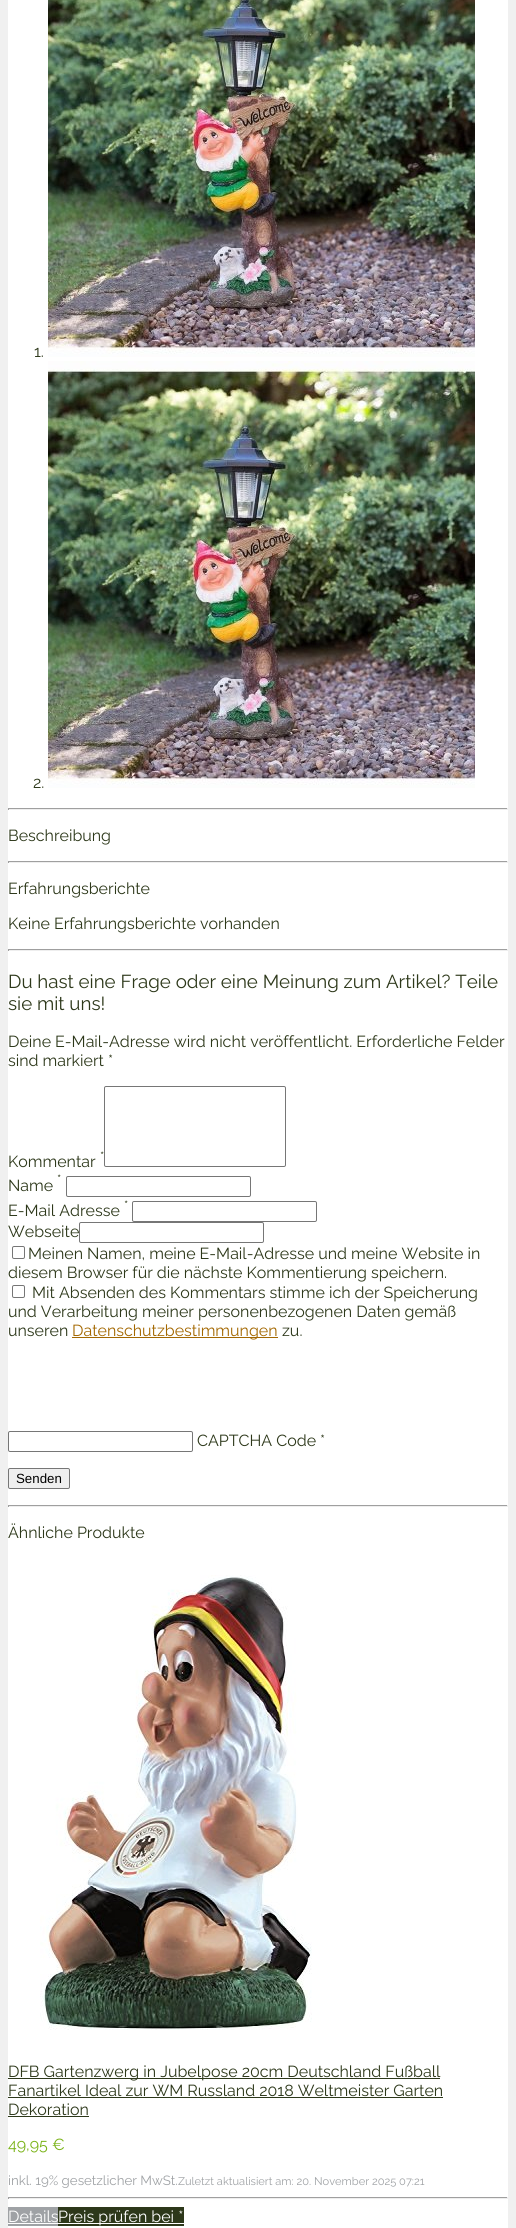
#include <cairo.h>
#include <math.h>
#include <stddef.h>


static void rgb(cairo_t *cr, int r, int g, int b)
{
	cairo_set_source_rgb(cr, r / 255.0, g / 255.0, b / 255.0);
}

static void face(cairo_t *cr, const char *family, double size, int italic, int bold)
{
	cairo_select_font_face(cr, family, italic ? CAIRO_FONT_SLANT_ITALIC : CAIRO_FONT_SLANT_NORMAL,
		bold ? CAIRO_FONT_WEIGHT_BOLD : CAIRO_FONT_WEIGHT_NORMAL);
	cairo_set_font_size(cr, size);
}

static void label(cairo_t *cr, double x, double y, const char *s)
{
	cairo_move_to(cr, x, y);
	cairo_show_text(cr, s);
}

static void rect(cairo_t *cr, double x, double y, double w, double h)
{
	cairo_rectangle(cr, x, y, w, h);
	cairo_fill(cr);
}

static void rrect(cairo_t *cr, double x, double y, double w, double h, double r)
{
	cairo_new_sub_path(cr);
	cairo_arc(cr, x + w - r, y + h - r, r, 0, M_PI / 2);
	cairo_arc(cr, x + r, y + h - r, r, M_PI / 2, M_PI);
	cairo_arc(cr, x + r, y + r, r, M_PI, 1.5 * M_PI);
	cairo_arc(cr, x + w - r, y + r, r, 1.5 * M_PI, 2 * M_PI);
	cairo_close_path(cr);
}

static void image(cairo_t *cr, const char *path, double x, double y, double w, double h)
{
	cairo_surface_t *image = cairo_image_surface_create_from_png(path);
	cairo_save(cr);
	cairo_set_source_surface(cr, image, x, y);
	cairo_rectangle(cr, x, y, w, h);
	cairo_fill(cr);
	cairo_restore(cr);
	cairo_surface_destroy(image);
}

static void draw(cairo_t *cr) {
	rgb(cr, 240, 240, 240);
	cairo_paint(cr);
	rgb(cr, 255, 255, 255);
	rect(cr, 8, 0, 500, 2228);
	face(cr, "Raleway", 16, 0, 0);
	rgb(cr, 45, 56, 26);
	label(cr, 34, 357, "1.");
	image(cr, "image0.png", 48, 0, 427, 357);
	label(cr, 33, 788, "2.");
	image(cr, "image1.png", 48, 361, 427, 427);
	rgb(cr, 159, 159, 159);
	rect(cr, 8, 808, 500, 1);
	rgb(cr, 238, 238, 238);
	rect(cr, 507, 808, 1, 2);
	rect(cr, 8, 809, 500, 1);
	rgb(cr, 159, 159, 159);
	rect(cr, 8, 808, 1, 2);
	rgb(cr, 45, 56, 26);
	label(cr, 8, 841, "Beschreibung");
	rgb(cr, 159, 159, 159);
	rect(cr, 8, 861, 500, 1);
	rgb(cr, 238, 238, 238);
	rect(cr, 507, 861, 1, 2);
	rect(cr, 8, 862, 500, 1);
	rgb(cr, 159, 159, 159);
	rect(cr, 8, 861, 1, 2);
	rgb(cr, 45, 56, 26);
	label(cr, 8, 894, "Erfahrungsberichte");
	label(cr, 8, 929, "Keine Erfahrungsberichte vorhanden");
	rgb(cr, 159, 159, 159);
	rect(cr, 8, 949, 500, 1);
	rgb(cr, 238, 238, 238);
	rect(cr, 507, 949, 1, 2);
	rect(cr, 8, 950, 500, 1);
	rgb(cr, 159, 159, 159);
	rect(cr, 8, 949, 1, 2);
	face(cr, "Raleway", 18.75, 0, 0);
	rgb(cr, 45, 56, 26);
	label(cr, 8, 988, "Du hast eine Frage oder eine Meinung zum Artikel? Teile");
	label(cr, 8, 1010, "sie mit uns!");
	face(cr, "Raleway", 16, 0, 0);
	label(cr, 8, 1047, "Deine E-Mail-Adresse wird nicht veröffentlicht. Erforderliche Felder");
	label(cr, 8, 1066, "sind markiert *");
	face(cr, "Raleway", 13.3, 0, 0);
	label(cr, 100, 1161, "*");
	rrect(cr, 104.5, 1086.5, 181, 80, 1.5);
	rgb(cr, 118, 118, 118);
	cairo_set_line_width(cr, 1);
	cairo_stroke(cr);
	face(cr, "Raleway", 16, 0, 0);
	rgb(cr, 45, 56, 26);
	label(cr, 8, 1167, "Kommentar");
	face(cr, "Raleway", 13.3, 0, 0);
	label(cr, 57, 1184, "*");
	face(cr, "Raleway", 16, 0, 0);
	label(cr, 8, 1191, "Name");
	rrect(cr, 66.5, 1176.5, 184, 20, 1.5);
	rgb(cr, 118, 118, 118);
	cairo_stroke(cr);
	rgb(cr, 45, 56, 26);
	label(cr, 8, 1216, "E-Mail Adresse");
	face(cr, "Raleway", 13.3, 0, 0);
	label(cr, 124, 1210, "*");
	rrect(cr, 132.5, 1201.5, 184, 20, 1.5);
	rgb(cr, 118, 118, 118);
	cairo_stroke(cr);
	face(cr, "Raleway", 16, 0, 0);
	rgb(cr, 45, 56, 26);
	label(cr, 8, 1237, "Webseite");
	rrect(cr, 79.5, 1222.5, 184, 20, 1.5);
	rgb(cr, 118, 118, 118);
	cairo_stroke(cr);
	rrect(cr, 12.5, 1246.5, 12, 12, 1.5);
	cairo_stroke(cr);
	rgb(cr, 45, 56, 26);
	label(cr, 28, 1259, "Meinen Namen, meine E-Mail-Adresse und meine Website in");
	label(cr, 8, 1278, "diesem Browser für die nächste Kommentierung speichern.");
	rrect(cr, 12.5, 1285.5, 12, 12, 1.5);
	rgb(cr, 118, 118, 118);
	cairo_stroke(cr);
	rgb(cr, 45, 56, 26);
	label(cr, 32, 1298, "Mit Absenden des Kommentars stimme ich der Speicherung");
	label(cr, 8, 1317, "und Verarbeitung meiner personenbezogenen Daten gemäß");
	label(cr, 8, 1336, "unseren");
	rgb(cr, 163, 103, 0);
	rect(cr, 72, 1337, 206, 1);
	label(cr, 72, 1336, "Datenschutzbestimmungen");
	rgb(cr, 45, 56, 26);
	label(cr, 282, 1336, "zu.");
	rrect(cr, 8.5, 1431.5, 184, 20, 1.5);
	rgb(cr, 118, 118, 118);
	cairo_stroke(cr);
	rgb(cr, 45, 56, 26);
	label(cr, 197, 1446, "CAPTCHA Code *");
	rgb(cr, 239, 239, 239);
	rrect(cr, 8.5, 1468.5, 61, 20, 1.5);
	cairo_fill_preserve(cr);
	rgb(cr, 118, 118, 118);
	cairo_stroke(cr);
	face(cr, "Liberation Sans", 13.3, 0, 0);
	rgb(cr, 0, 0, 0);
	label(cr, 16, 1483, "Senden");
	rgb(cr, 159, 159, 159);
	rect(cr, 8, 1505, 500, 1);
	rgb(cr, 238, 238, 238);
	rect(cr, 507, 1505, 1, 2);
	rect(cr, 8, 1506, 500, 1);
	rgb(cr, 159, 159, 159);
	rect(cr, 8, 1505, 1, 2);
	face(cr, "Raleway", 16, 0, 0);
	rgb(cr, 45, 56, 26);
	label(cr, 8, 1538, "Ähnliche Produkte");
	image(cr, "image2.png", 40, 1575, 272, 455);
	rect(cr, 8, 2078, 432, 1);
	label(cr, 8, 2077, "DFB Gartenzwerg in Jubelpose 20cm Deutschland Fußball");
	label(cr, 8, 2096, "Fanartikel Ideal zur WM Russland 2018 Weltmeister Garten");
	rect(cr, 8, 2097, 435, 1);
	label(cr, 8, 2115, "Dekoration");
	rect(cr, 8, 2116, 81, 1);
	rgb(cr, 122, 179, 23);
	label(cr, 8, 2150, "49,95 €");
	face(cr, "Raleway", 13.3, 0, 0);
	rgb(cr, 159, 162, 165);
	label(cr, 8, 2185, "inkl. 19% gesetzlicher MwSt.");
	face(cr, "Raleway", 11.1, 0, 0);
	label(cr, 178, 2185, "Zuletzt aktualisiert am: 20. November 2025 07:21");
	rgb(cr, 159, 159, 159);
	rect(cr, 8, 2197, 500, 1);
	rgb(cr, 238, 238, 238);
	rect(cr, 507, 2197, 1, 2);
	rect(cr, 8, 2198, 500, 1);
	rgb(cr, 159, 159, 159);
	rect(cr, 8, 2197, 1, 2);
	rgb(cr, 159, 162, 165);
	rect(cr, 8, 2207, 50, 19);
	face(cr, "Raleway", 16, 0, 0);
	rgb(cr, 255, 255, 255);
	label(cr, 8, 2222, "Details");
	rect(cr, 8, 2223, 50, 1);
	rgb(cr, 45, 56, 26);
	rect(cr, 58, 2207, 126, 19);
	rgb(cr, 255, 255, 255);
	rect(cr, 58, 2223, 126, 1);
	label(cr, 58, 2222, "Preis prüfen bei *");
}

int main(void) {
	cairo_surface_t *surface = cairo_image_surface_create(CAIRO_FORMAT_RGB24, 516, 2228);
	cairo_t *cr = cairo_create(surface);
	cairo_font_options_t *options = cairo_font_options_create();
	cairo_font_options_set_hint_metrics(options, CAIRO_HINT_METRICS_OFF);
	cairo_font_options_set_hint_style(options, CAIRO_HINT_STYLE_NONE);
	cairo_set_font_options(cr, options);
	cairo_set_miter_limit(cr, 4);
	draw(cr);
	cairo_surface_write_to_png(surface, "render.png");
	cairo_font_options_destroy(options);
	cairo_destroy(cr);
	cairo_surface_destroy(surface);
	return 0;
}
